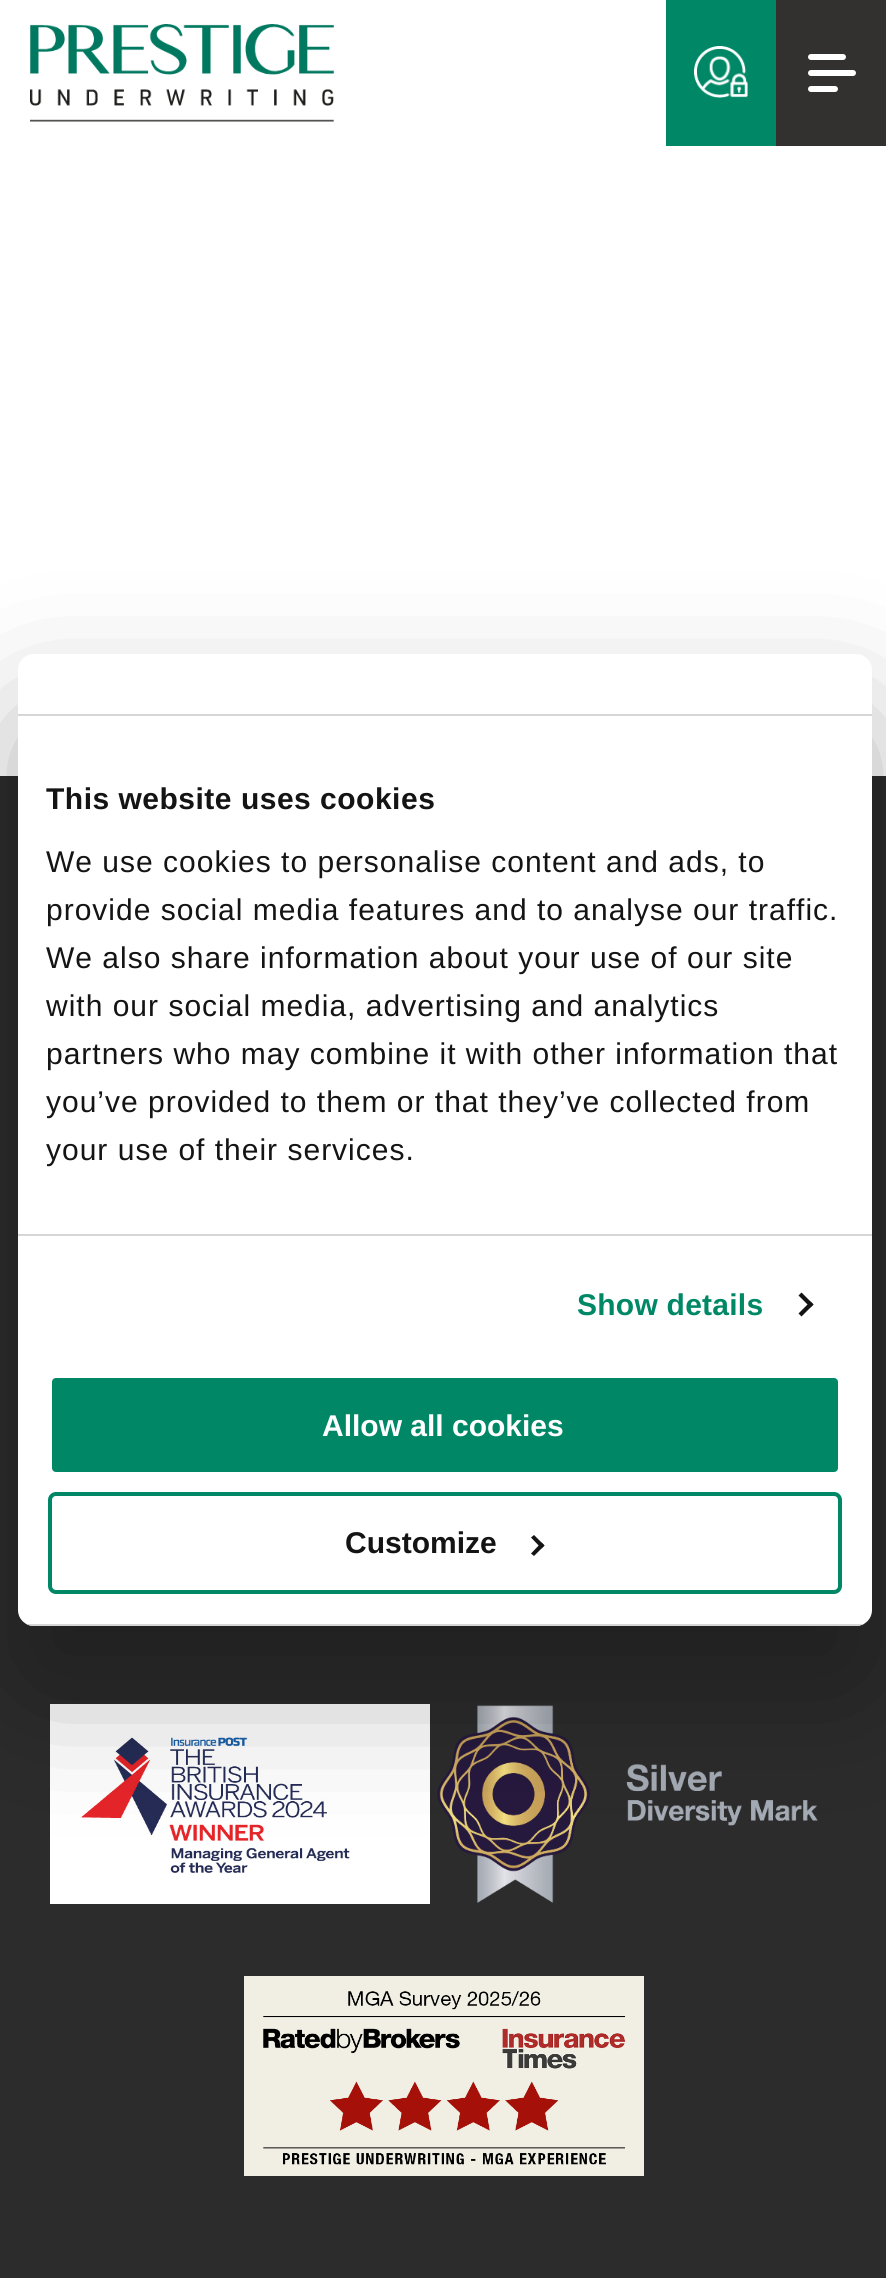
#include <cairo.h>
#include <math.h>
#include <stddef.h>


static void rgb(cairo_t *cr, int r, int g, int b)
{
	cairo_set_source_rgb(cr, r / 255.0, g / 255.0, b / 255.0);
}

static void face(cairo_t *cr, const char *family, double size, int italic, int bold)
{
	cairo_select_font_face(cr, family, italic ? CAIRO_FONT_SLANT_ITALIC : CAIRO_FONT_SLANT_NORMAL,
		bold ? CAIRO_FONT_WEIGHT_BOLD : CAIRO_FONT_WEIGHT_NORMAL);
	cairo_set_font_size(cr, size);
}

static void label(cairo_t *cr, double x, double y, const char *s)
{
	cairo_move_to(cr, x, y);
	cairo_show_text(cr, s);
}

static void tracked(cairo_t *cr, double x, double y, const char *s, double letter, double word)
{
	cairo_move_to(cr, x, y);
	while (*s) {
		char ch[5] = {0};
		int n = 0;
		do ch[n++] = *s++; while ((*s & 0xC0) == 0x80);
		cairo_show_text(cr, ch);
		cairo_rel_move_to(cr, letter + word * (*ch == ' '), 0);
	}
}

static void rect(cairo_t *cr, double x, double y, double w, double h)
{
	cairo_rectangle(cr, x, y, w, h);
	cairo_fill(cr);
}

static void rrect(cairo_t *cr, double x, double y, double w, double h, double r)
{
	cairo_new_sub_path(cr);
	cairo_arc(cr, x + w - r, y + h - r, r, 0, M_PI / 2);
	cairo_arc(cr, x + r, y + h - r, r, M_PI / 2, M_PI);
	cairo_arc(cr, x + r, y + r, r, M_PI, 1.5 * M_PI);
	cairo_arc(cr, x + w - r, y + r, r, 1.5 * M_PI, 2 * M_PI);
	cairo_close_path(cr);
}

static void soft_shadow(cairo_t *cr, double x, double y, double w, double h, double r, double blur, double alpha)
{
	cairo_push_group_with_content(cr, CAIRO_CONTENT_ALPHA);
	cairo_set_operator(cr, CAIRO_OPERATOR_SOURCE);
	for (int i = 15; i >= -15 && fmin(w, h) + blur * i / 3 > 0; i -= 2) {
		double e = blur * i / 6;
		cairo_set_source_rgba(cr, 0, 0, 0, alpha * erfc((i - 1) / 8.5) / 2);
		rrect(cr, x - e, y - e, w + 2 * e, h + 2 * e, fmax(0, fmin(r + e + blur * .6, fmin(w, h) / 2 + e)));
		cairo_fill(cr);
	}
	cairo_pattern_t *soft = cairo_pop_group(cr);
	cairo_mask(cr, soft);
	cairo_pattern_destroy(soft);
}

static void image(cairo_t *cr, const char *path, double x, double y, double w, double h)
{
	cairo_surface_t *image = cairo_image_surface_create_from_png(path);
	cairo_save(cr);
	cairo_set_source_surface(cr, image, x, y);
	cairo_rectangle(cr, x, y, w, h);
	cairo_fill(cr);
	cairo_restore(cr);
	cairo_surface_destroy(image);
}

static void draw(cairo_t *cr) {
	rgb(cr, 255, 255, 255);
	cairo_paint(cr);
	image(cr, "image0.png", 30, 24, 304, 98);
	rgb(cr, 0, 136, 102);
	rect(cr, 666, 0, 110, 146);
	image(cr, "image1.png", 694, 46, 54, 52);
	rgb(cr, 51, 48, 48);
	rect(cr, 776, 0, 110, 146);
	rgb(cr, 255, 255, 255);
	rrect(cr, 808, 54, 38, 6, 3);
	cairo_fill(cr);
	rrect(cr, 808, 70, 48, 6, 3);
	cairo_fill(cr);
	rrect(cr, 808, 86, 30, 6, 3);
	cairo_fill(cr);
	rgb(cr, 44, 44, 44);
	rect(cr, 0, 776, 886, 1502);
	image(cr, "image2.png", 50, 1704, 380, 200);
	image(cr, "image3.png", 437, 1705, 381, 198);
	image(cr, "image4.png", 244, 1976, 400, 200);
	rgb(cr, 0, 0, 0);
	soft_shadow(cr, 18, 718, 854, 972, 16, 68, 0.3);
	rgb(cr, 255, 255, 255);
	rrect(cr, 18, 654, 854, 972, 16);
	cairo_fill(cr);
	rgb(cr, 214, 214, 214);
	rect(cr, 18, 714, 854, 2);
	rect(cr, 18, 1234, 854, 2);
	face(cr, "Liberation Sans", 30, 0, 1);
	rgb(cr, 20, 20, 20);
	tracked(cr, 46, 809, "This website uses cookies", 0.5, 0);
	face(cr, "Liberation Sans", 30, 0, 0);
	tracked(cr, 46, 872, "We use cookies to personalise content and ads, to", 1, 0);
	tracked(cr, 46, 920, "provide social media features and to analyse our traffic.", 1, 0);
	tracked(cr, 46, 968, "We also share information about your use of our site", 1, 0);
	tracked(cr, 46, 1016, "with our social media, advertising and analytics", 1, 0);
	tracked(cr, 46, 1064, "partners who may combine it with other information that", 1, 0);
	tracked(cr, 46, 1112, "you’ve provided to them or that they’ve collected from", 1, 0);
	tracked(cr, 46, 1160, "your use of their services.", 1, 0);
	face(cr, "Liberation Sans", 30, 0, 1);
	rgb(cr, 0, 136, 102);
	tracked(cr, 577, 1315, "Show details", 0.25, 0);
	rgb(cr, 20, 20, 20);
	cairo_new_path(cr);
	cairo_move_to(cr, 801.5, 1292.5);
	cairo_line_to(cr, 813.5, 1304.5);
	cairo_line_to(cr, 810.5, 1307.5);
	cairo_line_to(cr, 798.5, 1295.5);
	cairo_close_path(cr);
	cairo_fill(cr);
	cairo_new_path(cr);
	cairo_move_to(cr, 810.5, 1301.5);
	cairo_line_to(cr, 813.5, 1304.5);
	cairo_line_to(cr, 801.5, 1316.5);
	cairo_line_to(cr, 798.5, 1313.5);
	cairo_close_path(cr);
	cairo_fill(cr);
	cairo_save(cr);
	rrect(cr, 18, 654, 854, 972, 16);
	cairo_clip(cr);
	rgb(cr, 214, 214, 214);
	rect(cr, 18, 1624, 854, 2);
	cairo_restore(cr);
	rgb(cr, 0, 136, 102);
	rrect(cr, 50, 1376, 790, 98, 6);
	cairo_fill_preserve(cr);
	rgb(cr, 255, 255, 255);
	cairo_set_line_width(cr, 4);
	cairo_stroke(cr);
	label(cr, 322, 1436, "Allow all cookies");
	rrect(cr, 50, 1494, 790, 98, 6);
	rgb(cr, 0, 136, 102);
	cairo_stroke(cr);
	rgb(cr, 20, 20, 20);
	label(cr, 345, 1553, "Customize");
	cairo_new_path(cr);
	cairo_move_to(cr, 534, 1535);
	cairo_line_to(cr, 544.5, 1545.5);
	cairo_line_to(cr, 541.5, 1548.5);
	cairo_line_to(cr, 531, 1537.5);
	cairo_close_path(cr);
	cairo_fill(cr);
	cairo_new_path(cr);
	cairo_move_to(cr, 541.5, 1542.5);
	cairo_line_to(cr, 544.5, 1545.5);
	cairo_line_to(cr, 534, 1556);
	cairo_line_to(cr, 531, 1553.5);
	cairo_close_path(cr);
	cairo_fill(cr);
}

int main(void) {
	cairo_surface_t *surface = cairo_image_surface_create(CAIRO_FORMAT_RGB24, 886, 2278);
	cairo_t *cr = cairo_create(surface);
	cairo_font_options_t *options = cairo_font_options_create();
	cairo_font_options_set_hint_metrics(options, CAIRO_HINT_METRICS_OFF);
	cairo_font_options_set_hint_style(options, CAIRO_HINT_STYLE_NONE);
	cairo_set_font_options(cr, options);
	cairo_set_miter_limit(cr, 4);
	draw(cr);
	cairo_surface_write_to_png(surface, "render.png");
	cairo_font_options_destroy(options);
	cairo_destroy(cr);
	cairo_surface_destroy(surface);
	return 0;
}
